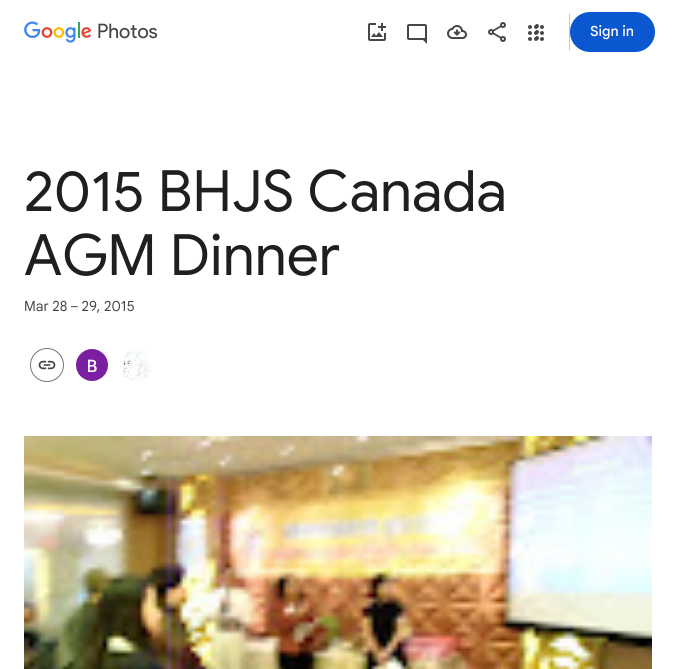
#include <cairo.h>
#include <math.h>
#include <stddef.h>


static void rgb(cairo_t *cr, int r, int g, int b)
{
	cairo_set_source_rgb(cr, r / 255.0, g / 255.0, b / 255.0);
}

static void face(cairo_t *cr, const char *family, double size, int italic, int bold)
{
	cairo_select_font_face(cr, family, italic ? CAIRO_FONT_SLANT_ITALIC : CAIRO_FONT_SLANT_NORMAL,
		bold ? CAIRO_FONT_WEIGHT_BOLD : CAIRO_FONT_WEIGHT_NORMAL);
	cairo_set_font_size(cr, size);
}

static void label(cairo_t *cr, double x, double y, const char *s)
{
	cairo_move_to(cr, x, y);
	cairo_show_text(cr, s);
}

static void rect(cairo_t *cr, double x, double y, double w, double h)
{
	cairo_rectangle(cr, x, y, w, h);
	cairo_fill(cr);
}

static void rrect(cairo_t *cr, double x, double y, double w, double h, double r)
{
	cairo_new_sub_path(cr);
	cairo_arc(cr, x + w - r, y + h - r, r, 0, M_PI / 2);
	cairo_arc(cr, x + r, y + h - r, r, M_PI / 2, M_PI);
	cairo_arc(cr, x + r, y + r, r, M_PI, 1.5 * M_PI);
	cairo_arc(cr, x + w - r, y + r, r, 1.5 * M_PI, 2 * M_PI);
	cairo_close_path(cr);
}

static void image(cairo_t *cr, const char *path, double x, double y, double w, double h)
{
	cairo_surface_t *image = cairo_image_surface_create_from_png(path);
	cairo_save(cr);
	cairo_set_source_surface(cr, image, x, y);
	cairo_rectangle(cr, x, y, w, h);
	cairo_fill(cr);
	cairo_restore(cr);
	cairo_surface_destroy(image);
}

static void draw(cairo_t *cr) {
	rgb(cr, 255, 255, 255);
	cairo_paint(cr);
	image(cr, "image0.png", 24, 21, 68, 22);
	face(cr, "Product Sans", 20, 0, 0);
	rgb(cr, 68, 71, 70);
	label(cr, 97, 38, "Photos");
	image(cr, "image1.png", 368, 23, 18, 18);
	image(cr, "image2.png", 407, 24, 20, 20);
	image(cr, "image3.png", 447, 25, 20, 14);
	image(cr, "image4.png", 488, 22, 18, 20);
	image(cr, "image5.png", 535, 24, 4, 16);
	rgb(cr, 196, 199, 197);
	rect(cr, 569, 14, 1, 36);
	face(cr, "Google Sans", 57, 0, 0);
	rgb(cr, 31, 31, 31);
	label(cr, 24, 211, "2015 BHJS Canada");
	label(cr, 24, 275, "AGM Dinner");
	face(cr, "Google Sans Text", 14, 0, 0);
	rgb(cr, 68, 71, 70);
	label(cr, 24, 311, "Mar 28 – 29, 2015");
	cairo_new_path(cr);
	cairo_arc(cr, 47, 365, 16.5, 0, 2 * M_PI);
	rgb(cr, 116, 119, 117);
	cairo_set_line_width(cr, 1);
	cairo_stroke(cr);
	image(cr, "image6.png", 38, 360, 18, 10);
	image(cr, "image7.png", 76, 349, 32, 32);
	image(cr, "image8.png", 120, 349, 32, 32);
	image(cr, "image9.png", 24, 436, 628, 233);
	image(cr, "image10.png", 528, 25, 16, 16);
	rgb(cr, 11, 87, 208);
	rrect(cr, 570, 12, 85, 40, 20);
	cairo_fill(cr);
	face(cr, "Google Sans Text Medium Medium", 14, 0, 0);
	rgb(cr, 255, 255, 255);
	label(cr, 590, 36, "Sign in");
}

int main(void) {
	cairo_surface_t *surface = cairo_image_surface_create(CAIRO_FORMAT_RGB24, 691, 669);
	cairo_t *cr = cairo_create(surface);
	cairo_font_options_t *options = cairo_font_options_create();
	cairo_font_options_set_hint_metrics(options, CAIRO_HINT_METRICS_OFF);
	cairo_font_options_set_hint_style(options, CAIRO_HINT_STYLE_NONE);
	cairo_set_font_options(cr, options);
	cairo_set_miter_limit(cr, 4);
	draw(cr);
	cairo_surface_write_to_png(surface, "render.png");
	cairo_font_options_destroy(options);
	cairo_destroy(cr);
	cairo_surface_destroy(surface);
	return 0;
}
